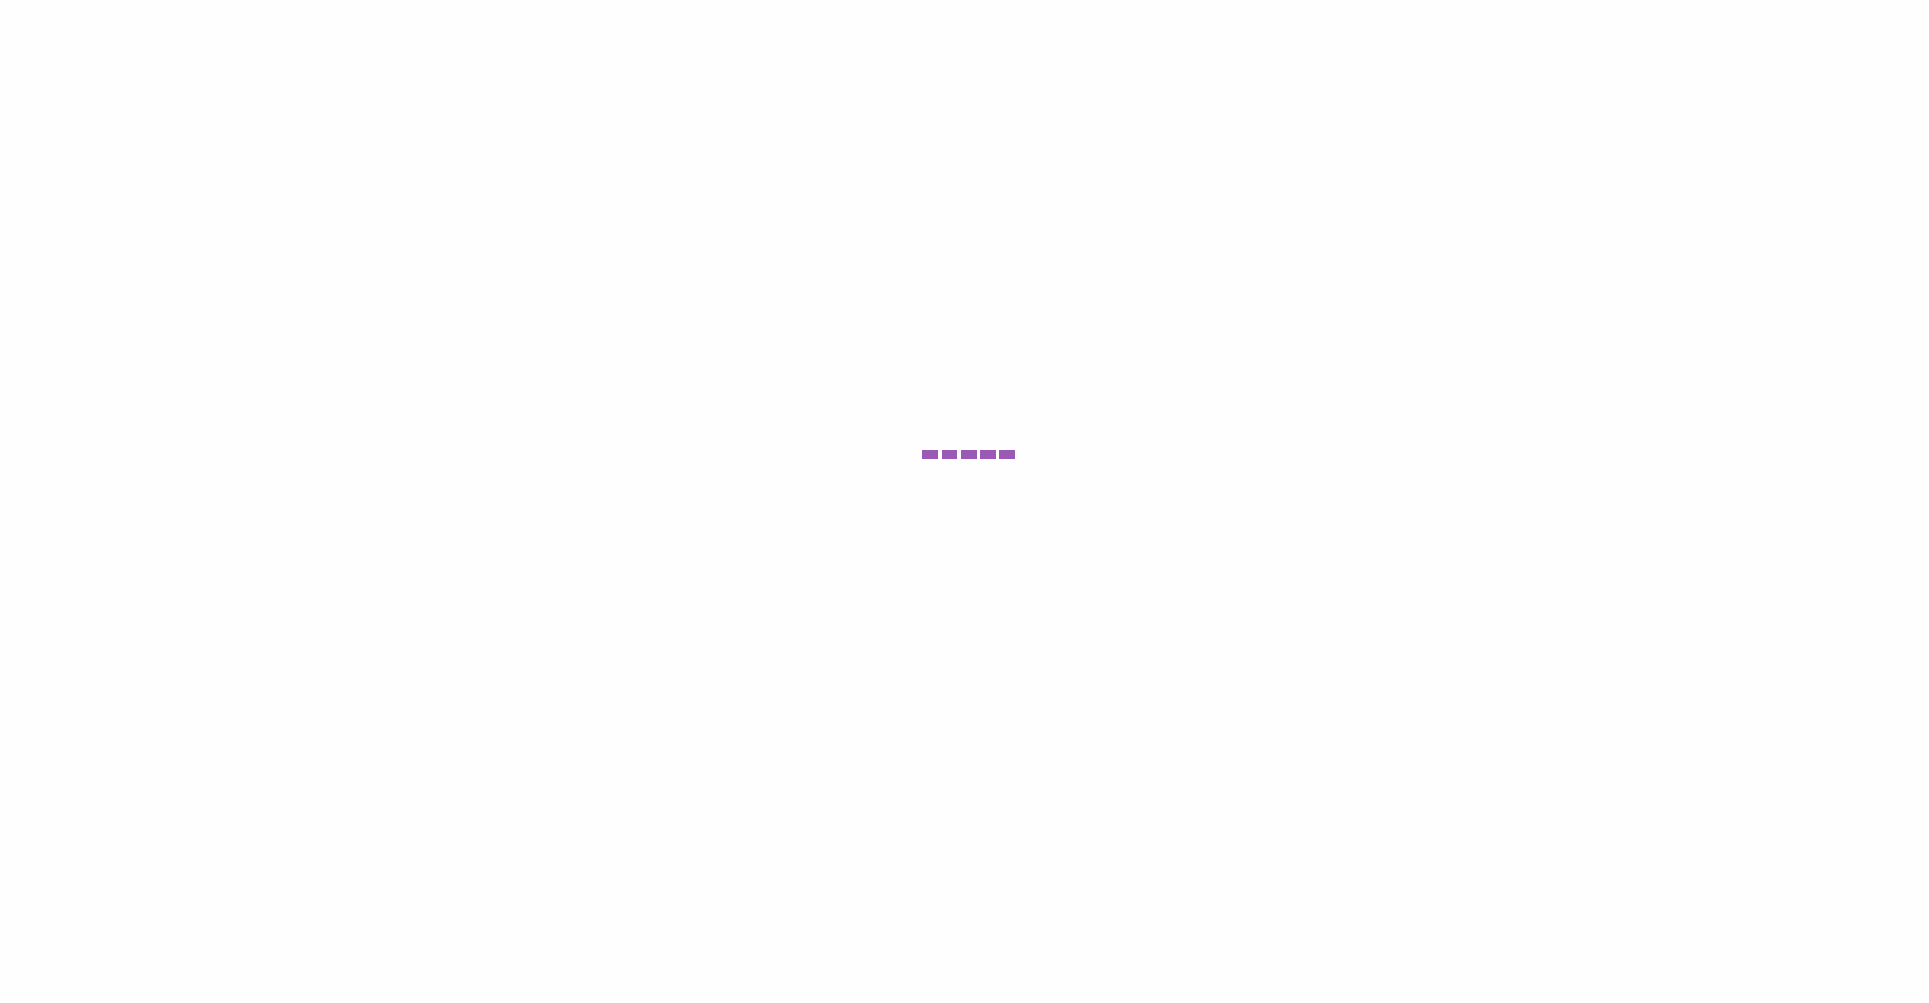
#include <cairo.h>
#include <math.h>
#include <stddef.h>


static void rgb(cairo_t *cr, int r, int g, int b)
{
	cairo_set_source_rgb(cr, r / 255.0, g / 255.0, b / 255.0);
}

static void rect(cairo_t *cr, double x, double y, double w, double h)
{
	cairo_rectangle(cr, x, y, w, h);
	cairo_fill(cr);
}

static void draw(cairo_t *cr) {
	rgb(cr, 254, 254, 254);
	cairo_paint(cr);
	rgb(cr, 155, 89, 182);
	rect(cr, 922, 450, 16, 9);
	rect(cr, 942, 450, 15, 9);
	rect(cr, 961, 450, 16, 9);
	rect(cr, 980, 450, 16, 9);
	rect(cr, 999, 450, 16, 9);
}

int main(void) {
	cairo_surface_t *surface = cairo_image_surface_create(CAIRO_FORMAT_RGB24, 1929, 1003);
	cairo_t *cr = cairo_create(surface);
	cairo_font_options_t *options = cairo_font_options_create();
	cairo_font_options_set_hint_metrics(options, CAIRO_HINT_METRICS_OFF);
	cairo_font_options_set_hint_style(options, CAIRO_HINT_STYLE_NONE);
	cairo_set_font_options(cr, options);
	cairo_set_miter_limit(cr, 4);
	draw(cr);
	cairo_surface_write_to_png(surface, "render.png");
	cairo_font_options_destroy(options);
	cairo_destroy(cr);
	cairo_surface_destroy(surface);
	return 0;
}
